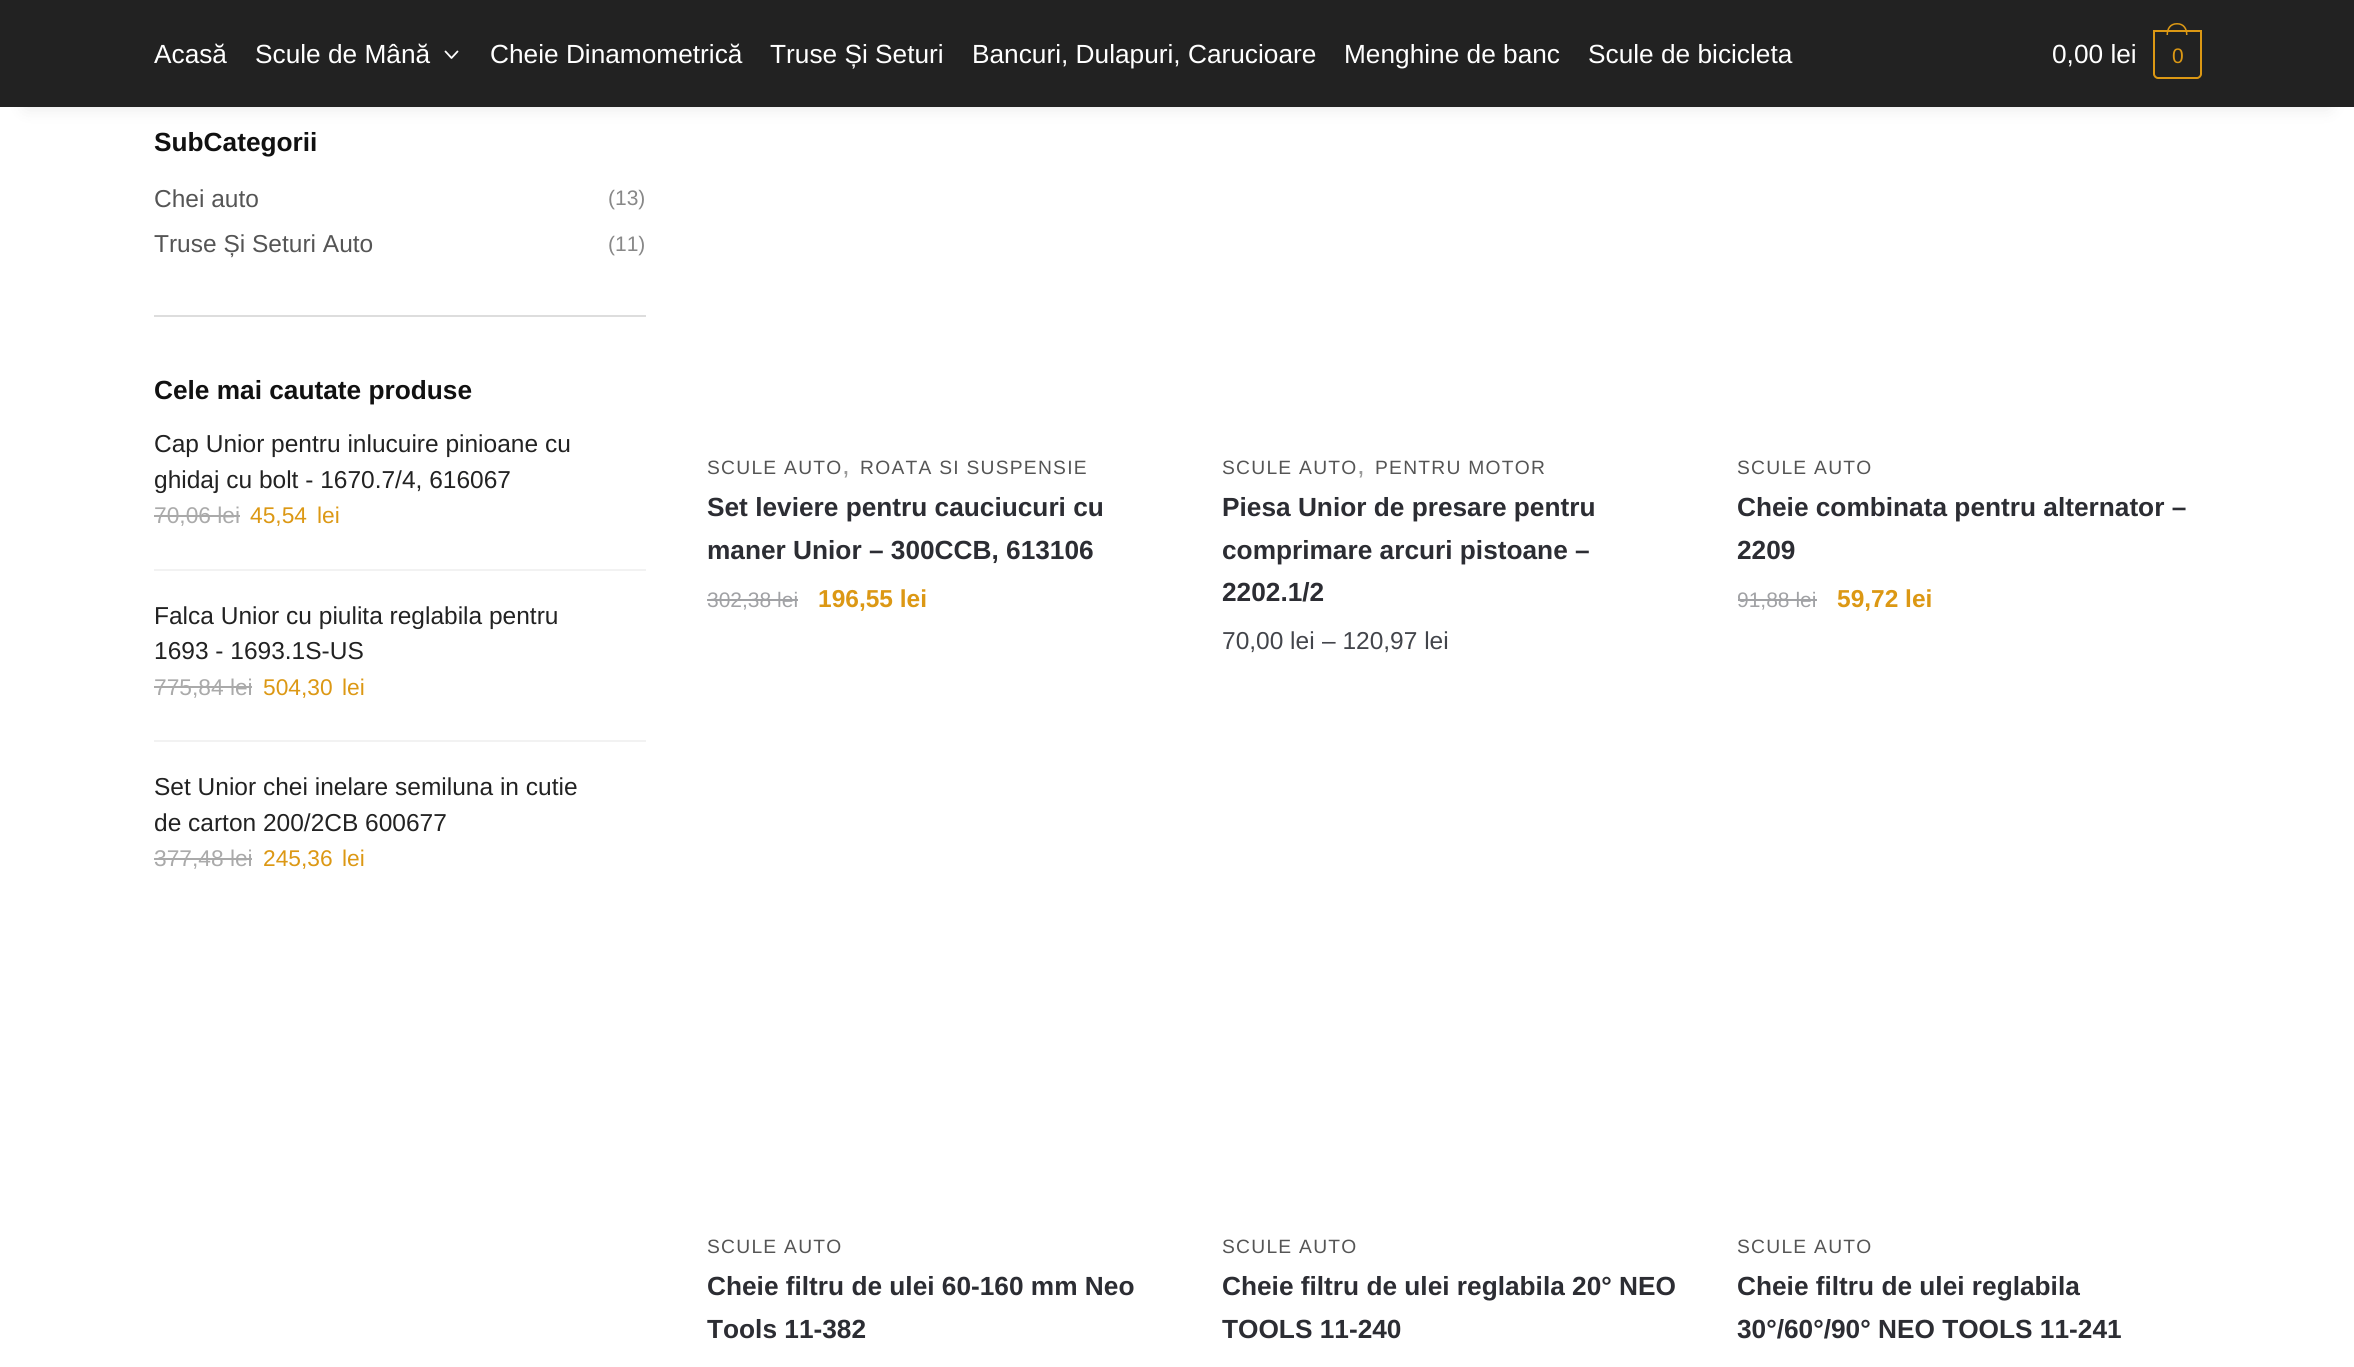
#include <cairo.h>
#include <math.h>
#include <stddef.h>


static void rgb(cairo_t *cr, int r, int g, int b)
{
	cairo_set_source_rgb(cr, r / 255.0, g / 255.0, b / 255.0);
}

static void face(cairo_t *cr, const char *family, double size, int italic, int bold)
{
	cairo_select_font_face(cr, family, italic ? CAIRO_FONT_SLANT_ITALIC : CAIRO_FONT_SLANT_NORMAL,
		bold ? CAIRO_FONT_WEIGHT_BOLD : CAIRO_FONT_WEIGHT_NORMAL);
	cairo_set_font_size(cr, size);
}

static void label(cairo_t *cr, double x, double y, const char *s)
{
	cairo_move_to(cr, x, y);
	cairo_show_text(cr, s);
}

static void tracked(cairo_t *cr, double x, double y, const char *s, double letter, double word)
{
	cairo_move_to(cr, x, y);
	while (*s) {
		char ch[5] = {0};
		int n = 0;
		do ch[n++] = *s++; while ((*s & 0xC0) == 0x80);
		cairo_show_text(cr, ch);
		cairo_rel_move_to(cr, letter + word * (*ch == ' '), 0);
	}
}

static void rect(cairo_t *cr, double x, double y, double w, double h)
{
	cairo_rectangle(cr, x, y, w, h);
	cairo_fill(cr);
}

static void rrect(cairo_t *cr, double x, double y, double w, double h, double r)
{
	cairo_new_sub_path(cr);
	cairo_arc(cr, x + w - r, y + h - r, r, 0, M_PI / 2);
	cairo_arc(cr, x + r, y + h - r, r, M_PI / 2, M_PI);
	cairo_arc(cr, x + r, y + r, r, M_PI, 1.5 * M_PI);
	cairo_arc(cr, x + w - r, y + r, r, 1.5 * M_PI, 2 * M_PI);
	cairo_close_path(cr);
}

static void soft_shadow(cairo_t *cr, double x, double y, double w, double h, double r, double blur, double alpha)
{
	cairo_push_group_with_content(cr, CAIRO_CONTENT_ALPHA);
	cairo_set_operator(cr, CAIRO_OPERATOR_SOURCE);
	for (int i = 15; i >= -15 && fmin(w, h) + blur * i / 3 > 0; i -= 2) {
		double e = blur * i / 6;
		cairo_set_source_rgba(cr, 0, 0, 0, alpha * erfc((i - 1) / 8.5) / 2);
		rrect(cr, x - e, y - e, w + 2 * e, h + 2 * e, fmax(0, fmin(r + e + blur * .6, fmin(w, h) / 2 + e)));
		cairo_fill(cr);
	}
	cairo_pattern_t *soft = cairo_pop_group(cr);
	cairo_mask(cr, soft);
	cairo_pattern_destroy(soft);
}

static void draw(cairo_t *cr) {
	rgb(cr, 255, 255, 255);
	cairo_paint(cr);
	rgb(cr, 0, 0, 0);
	soft_shadow(cr, 26, 53, 2303, 54, 0, 9, 0.1);
	rgb(cr, 34, 34, 34);
	rect(cr, 0, 0, 2354, 107);
	face(cr, "Liberation Sans", 26.25, 0, 0);
	rgb(cr, 255, 255, 255);
	label(cr, 154, 63, "Acasă");
	label(cr, 255, 63, "Scule de Mână");
	cairo_new_path(cr);
	cairo_move_to(cr, 457.5, 51.5);
	cairo_line_to(cr, 451.5, 58);
	cairo_line_to(cr, 445.5, 51.5);
	cairo_set_line_width(cr, 1.8);
	cairo_set_line_cap(cr, CAIRO_LINE_CAP_ROUND);
	cairo_set_line_join(cr, CAIRO_LINE_JOIN_ROUND);
	cairo_stroke(cr);
	label(cr, 490, 63, "Cheie Dinamometrică");
	label(cr, 770, 63, "Truse Și Seturi");
	label(cr, 972, 63, "Bancuri, Dulapuri, Carucioare");
	label(cr, 1344, 63, "Menghine de banc");
	label(cr, 1588, 63, "Scule de bicicleta");
	label(cr, 2052, 63, "0,00 lei");
	cairo_new_path(cr);
	cairo_move_to(cr, 2154, 31);
	cairo_line_to(cr, 2201, 31);
	cairo_line_to(cr, 2201, 74);
	cairo_curve_to(cr, 2201, 76, 2199, 78, 2197, 78);
	cairo_line_to(cr, 2158, 78);
	cairo_curve_to(cr, 2156, 78, 2154, 76, 2154, 74);
	cairo_close_path(cr);
	rgb(cr, 220, 152, 20);
	cairo_set_line_width(cr, 2);
	cairo_set_line_cap(cr, CAIRO_LINE_CAP_BUTT);
	cairo_set_line_join(cr, CAIRO_LINE_JOIN_MITER);
	cairo_stroke(cr);
	cairo_set_fill_rule(cr, CAIRO_FILL_RULE_EVEN_ODD);
	cairo_new_path(cr);
	cairo_move_to(cr, 2177, 23);
	cairo_curve_to(cr, 2184.5, 23, 2187.5, 28.5, 2187.5, 35);
	cairo_line_to(cr, 2166.5, 35);
	cairo_curve_to(cr, 2166.5, 28.5, 2169.5, 23, 2177, 23);
	cairo_close_path(cr);
	cairo_move_to(cr, 2177, 24.5);
	cairo_curve_to(cr, 2183.5, 24.5, 2186, 29.5, 2186, 35);
	cairo_line_to(cr, 2168, 35);
	cairo_curve_to(cr, 2168, 29.5, 2170.5, 24.5, 2177, 24.5);
	cairo_close_path(cr);
	cairo_fill(cr);
	face(cr, "Liberation Sans", 21, 0, 0);
	tracked(cr, 2172, 63, "0", -1, 0);
	rgb(cr, 221, 221, 221);
	rect(cr, 154, 315, 492, 2);
	face(cr, "Liberation Sans", 26.25, 0, 1);
	rgb(cr, 17, 17, 17);
	label(cr, 154, 151, "SubCategorii");
	face(cr, "Liberation Sans", 24.5, 0, 0);
	rgb(cr, 85, 85, 85);
	label(cr, 154, 207, "Chei auto");
	face(cr, "Liberation Sans", 21, 0, 0);
	rgb(cr, 136, 136, 136);
	label(cr, 608, 205, "(13)");
	face(cr, "Liberation Sans", 24.5, 0, 0);
	rgb(cr, 85, 85, 85);
	label(cr, 154, 252, "Truse Și Seturi Auto");
	face(cr, "Liberation Sans", 21, 0, 0);
	rgb(cr, 136, 136, 136);
	label(cr, 608, 251, "(11)");
	face(cr, "Liberation Sans", 26.25, 0, 1);
	rgb(cr, 17, 17, 17);
	label(cr, 154, 399, "Cele mai cautate produse");
	rgb(cr, 242, 242, 242);
	rect(cr, 154, 569, 492, 2);
	face(cr, "Liberation Sans", 24.5, 0, 0);
	rgb(cr, 34, 34, 34);
	label(cr, 154, 452, "Cap Unior pentru inlucuire pinioane cu");
	label(cr, 154, 488, "ghidaj cu bolt - 1670.7/4, 616067");
	face(cr, "Liberation Sans", 22.75, 0, 0);
	rgb(cr, 170, 170, 170);
	label(cr, 154, 523, "70,06 lei");
	rect(cr, 154, 515, 86, 2);
	rgb(cr, 220, 152, 20);
	label(cr, 250, 523, "45,54");
	label(cr, 317, 523, "lei");
	rgb(cr, 242, 242, 242);
	rect(cr, 154, 740, 492, 2);
	face(cr, "Liberation Sans", 24.5, 0, 0);
	rgb(cr, 34, 34, 34);
	label(cr, 154, 624, "Falca Unior cu piulita reglabila pentru");
	label(cr, 154, 659, "1693 - 1693.1S-US");
	face(cr, "Liberation Sans", 22.75, 0, 0);
	rgb(cr, 170, 170, 170);
	label(cr, 154, 695, "775,84 lei");
	rect(cr, 154, 686, 98, 2);
	rgb(cr, 220, 152, 20);
	label(cr, 263, 695, "504,30");
	label(cr, 342, 695, "lei");
	face(cr, "Liberation Sans", 24.5, 0, 0);
	rgb(cr, 34, 34, 34);
	label(cr, 154, 795, "Set Unior chei inelare semiluna in cutie");
	label(cr, 154, 831, "de carton 200/2CB 600677");
	face(cr, "Liberation Sans", 22.75, 0, 0);
	rgb(cr, 170, 170, 170);
	label(cr, 154, 866, "377,48 lei");
	rect(cr, 154, 858, 98, 2);
	rgb(cr, 220, 152, 20);
	label(cr, 263, 866, "245,36");
	label(cr, 342, 866, "lei");
	face(cr, "Liberation Sans", 19.25, 0, 0);
	rgb(cr, 85, 85, 85);
	tracked(cr, 707, 474, "SCULE AUTO", 1.25, 0);
	face(cr, "Liberation Sans", 28, 0, 0);
	rgb(cr, 153, 153, 153);
	tracked(cr, 842, 474, ",", 1.25, 0);
	face(cr, "Liberation Sans", 19.25, 0, 0);
	rgb(cr, 85, 85, 85);
	tracked(cr, 860, 474, "ROATA SI SUSPENSIE", 1.25, 0);
	face(cr, "Liberation Sans", 26.25, 0, 1);
	rgb(cr, 44, 45, 51);
	label(cr, 707, 516, "Set leviere pentru cauciucuri cu");
	label(cr, 707, 559, "maner Unior – 300CCB, 613106");
	face(cr, "Liberation Sans", 21, 0, 0);
	rgb(cr, 161, 162, 165);
	label(cr, 707, 607, "302,38 lei");
	rect(cr, 707, 599, 91, 2);
	face(cr, "Liberation Sans", 24.5, 0, 1);
	rgb(cr, 220, 152, 20);
	label(cr, 818, 607, "196,55 lei");
	face(cr, "Liberation Sans", 19.25, 0, 0);
	rgb(cr, 85, 85, 85);
	tracked(cr, 1222, 474, "SCULE AUTO", 1.25, 0);
	face(cr, "Liberation Sans", 28, 0, 0);
	rgb(cr, 153, 153, 153);
	tracked(cr, 1357, 474, ",", 1.25, 0);
	face(cr, "Liberation Sans", 19.25, 0, 0);
	rgb(cr, 85, 85, 85);
	tracked(cr, 1375, 474, "PENTRU MOTOR", 1.25, 0);
	face(cr, "Liberation Sans", 26.25, 0, 1);
	rgb(cr, 44, 45, 51);
	label(cr, 1222, 516, "Piesa Unior de presare pentru");
	label(cr, 1222, 559, "comprimare arcuri pistoane –");
	label(cr, 1222, 601, "2202.1/2");
	face(cr, "Liberation Sans", 24.5, 0, 0);
	rgb(cr, 67, 69, 75);
	label(cr, 1222, 649, "70,00 lei");
	label(cr, 1322, 649, "– 120,97 lei");
	face(cr, "Liberation Sans", 19.25, 0, 0);
	rgb(cr, 85, 85, 85);
	tracked(cr, 1737, 474, "SCULE AUTO", 1.25, 0);
	face(cr, "Liberation Sans", 26.25, 0, 1);
	rgb(cr, 44, 45, 51);
	label(cr, 1737, 516, "Cheie combinata pentru alternator –");
	label(cr, 1737, 559, "2209");
	face(cr, "Liberation Sans", 21, 0, 0);
	rgb(cr, 161, 162, 165);
	label(cr, 1737, 607, "91,88 lei");
	rect(cr, 1738, 599, 79, 2);
	face(cr, "Liberation Sans", 24.5, 0, 1);
	rgb(cr, 220, 152, 20);
	label(cr, 1837, 607, "59,72 lei");
	face(cr, "Liberation Sans", 19.25, 0, 0);
	rgb(cr, 85, 85, 85);
	tracked(cr, 707, 1253, "SCULE AUTO", 1.25, 0);
	face(cr, "Liberation Sans", 26.25, 0, 1);
	rgb(cr, 44, 45, 51);
	label(cr, 707, 1295, "Cheie filtru de ulei 60-160 mm Neo");
	label(cr, 707, 1338, "Tools 11-382");
	face(cr, "Liberation Sans", 19.25, 0, 0);
	rgb(cr, 85, 85, 85);
	tracked(cr, 1222, 1253, "SCULE AUTO", 1.25, 0);
	face(cr, "Liberation Sans", 26.25, 0, 1);
	rgb(cr, 44, 45, 51);
	label(cr, 1222, 1295, "Cheie filtru de ulei reglabila 20° NEO");
	label(cr, 1222, 1338, "TOOLS 11-240");
	face(cr, "Liberation Sans", 19.25, 0, 0);
	rgb(cr, 85, 85, 85);
	tracked(cr, 1737, 1253, "SCULE AUTO", 1.25, 0);
	face(cr, "Liberation Sans", 26.25, 0, 1);
	rgb(cr, 44, 45, 51);
	label(cr, 1737, 1295, "Cheie filtru de ulei reglabila");
	label(cr, 1737, 1338, "30°/60°/90° NEO TOOLS 11-241");
}

int main(void) {
	cairo_surface_t *surface = cairo_image_surface_create(CAIRO_FORMAT_RGB24, 2354, 1367);
	cairo_t *cr = cairo_create(surface);
	cairo_font_options_t *options = cairo_font_options_create();
	cairo_font_options_set_hint_metrics(options, CAIRO_HINT_METRICS_OFF);
	cairo_font_options_set_hint_style(options, CAIRO_HINT_STYLE_NONE);
	cairo_set_font_options(cr, options);
	cairo_set_miter_limit(cr, 4);
	draw(cr);
	cairo_surface_write_to_png(surface, "render.png");
	cairo_font_options_destroy(options);
	cairo_destroy(cr);
	cairo_surface_destroy(surface);
	return 0;
}
